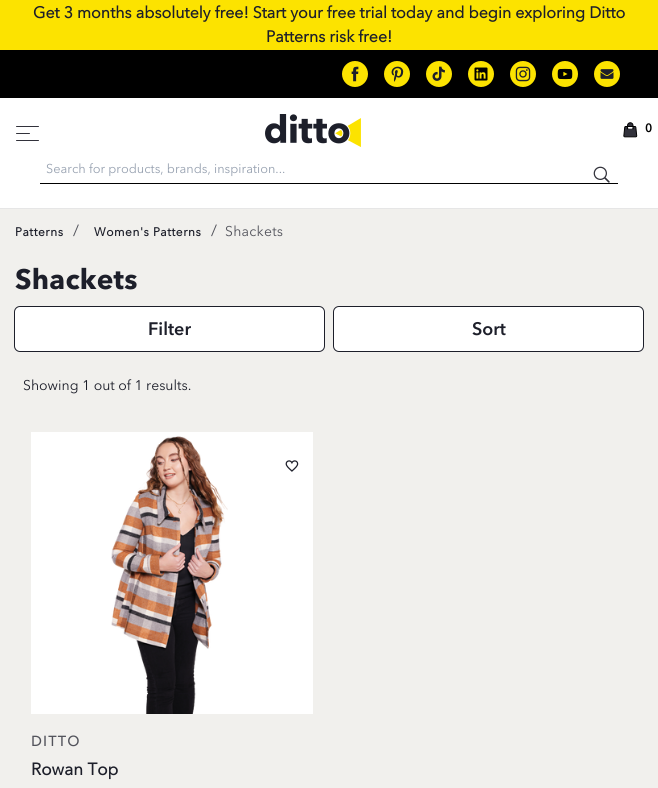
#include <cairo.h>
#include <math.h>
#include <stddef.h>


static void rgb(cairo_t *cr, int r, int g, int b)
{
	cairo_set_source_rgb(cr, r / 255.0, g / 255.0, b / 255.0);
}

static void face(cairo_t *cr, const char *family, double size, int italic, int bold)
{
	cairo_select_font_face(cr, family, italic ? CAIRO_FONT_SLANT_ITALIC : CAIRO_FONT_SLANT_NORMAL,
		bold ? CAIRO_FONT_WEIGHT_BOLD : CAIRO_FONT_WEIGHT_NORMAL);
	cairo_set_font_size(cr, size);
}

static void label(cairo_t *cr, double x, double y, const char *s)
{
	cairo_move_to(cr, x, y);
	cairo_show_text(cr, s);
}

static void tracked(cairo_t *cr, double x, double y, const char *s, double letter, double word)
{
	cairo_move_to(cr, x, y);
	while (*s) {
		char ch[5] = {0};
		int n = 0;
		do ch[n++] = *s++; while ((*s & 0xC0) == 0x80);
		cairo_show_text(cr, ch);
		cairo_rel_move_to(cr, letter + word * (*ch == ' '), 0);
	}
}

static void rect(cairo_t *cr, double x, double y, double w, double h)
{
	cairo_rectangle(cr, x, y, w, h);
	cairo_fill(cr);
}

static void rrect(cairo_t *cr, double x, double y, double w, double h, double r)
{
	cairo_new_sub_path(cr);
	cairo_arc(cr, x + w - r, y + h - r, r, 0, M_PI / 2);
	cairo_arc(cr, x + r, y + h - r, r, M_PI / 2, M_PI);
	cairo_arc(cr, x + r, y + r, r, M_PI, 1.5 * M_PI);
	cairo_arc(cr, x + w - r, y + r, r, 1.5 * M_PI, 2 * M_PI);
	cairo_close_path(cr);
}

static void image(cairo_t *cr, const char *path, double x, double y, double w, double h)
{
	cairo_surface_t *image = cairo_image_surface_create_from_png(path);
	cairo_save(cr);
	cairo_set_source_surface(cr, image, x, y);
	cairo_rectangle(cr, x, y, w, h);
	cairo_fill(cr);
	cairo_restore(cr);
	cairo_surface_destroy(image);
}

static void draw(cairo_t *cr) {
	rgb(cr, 255, 255, 255);
	cairo_paint(cr);
	rgb(cr, 0, 0, 0);
	rect(cr, 0, 50, 658, 48);
	rgb(cr, 252, 227, 0);
	rect(cr, 0, 0, 658, 50);
	face(cr, "avenir", 16, 0, 1);
	rgb(cr, 29, 31, 42);
	label(cr, 33, 18, "Get 3 months absolutely free! Start your free trial today and begin exploring Ditto");
	label(cr, 266, 42, "Patterns risk free!");
	image(cr, "image0.png", 342, 61, 26, 26);
	image(cr, "image1.png", 384, 61, 26, 26);
	image(cr, "image2.png", 426, 61, 26, 26);
	image(cr, "image3.png", 468, 61, 26, 26);
	image(cr, "image4.png", 510, 61, 26, 26);
	image(cr, "image5.png", 552, 61, 26, 26);
	image(cr, "image6.png", 594, 61, 26, 26);
	rgb(cr, 230, 230, 230);
	rect(cr, 0, 208, 658, 1);
	image(cr, "image7.png", 16, 126, 23, 15);
	image(cr, "image8.png", 265, 114, 96, 33);
	image(cr, "image9.png", 623, 122, 15, 16);
	face(cr, "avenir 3", 12, 0, 1);
	rgb(cr, 0, 0, 0);
	label(cr, 645, 132, "0");
	rect(cr, 40, 183, 578, 1);
	face(cr, "avenir", 12.75, 0, 0);
	rgb(cr, 151, 161, 176);
	label(cr, 46, 173, "Search for products, brands, inspiration...");
	image(cr, "image10.png", 593, 166, 17, 17);
	rgb(cr, 241, 240, 237);
	rect(cr, 0, 209, 658, 579);
	face(cr, "avenir", 12, 0, 1);
	rgb(cr, 29, 31, 42);
	tracked(cr, 15, 236, "Patterns", 0.5, 0);
	face(cr, "avenir", 16, 0, 0);
	rgb(cr, 82, 83, 91);
	tracked(cr, 73, 236, "/", 0.25, 0);
	face(cr, "avenir", 12, 0, 1);
	rgb(cr, 29, 31, 42);
	tracked(cr, 94, 236, "Women's Patterns", 0.5, 0);
	face(cr, "avenir", 16, 0, 0);
	rgb(cr, 82, 83, 91);
	tracked(cr, 211, 236, "/", 0.25, 0);
	face(cr, "avenir", 14, 0, 0);
	tracked(cr, 225, 236, "Shackets", 0.25, 0);
	face(cr, "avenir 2", 28, 0, 1);
	rgb(cr, 29, 31, 42);
	tracked(cr, 15, 289, "Shackets", 0.25, 0);
	rgb(cr, 255, 255, 255);
	rrect(cr, 14.5, 306.5, 310, 45, 5.5);
	cairo_fill_preserve(cr);
	rgb(cr, 29, 31, 42);
	cairo_set_line_width(cr, 1);
	cairo_stroke(cr);
	face(cr, "avenir 3", 18, 0, 1);
	label(cr, 148, 335, "Filter");
	rgb(cr, 255, 255, 255);
	rrect(cr, 333.5, 306.5, 310, 45, 5.5);
	cairo_fill_preserve(cr);
	rgb(cr, 29, 31, 42);
	cairo_stroke(cr);
	label(cr, 472, 335, "Sort");
	face(cr, "avenir", 14, 0, 0);
	label(cr, 23, 390, "Showing 1 out of 1 results.");
	rgb(cr, 255, 255, 255);
	rect(cr, 31, 432, 282, 282);
	image(cr, "image11.png", 111, 436, 117, 278);
	image(cr, "image12.png", 285, 460, 14, 12);
	face(cr, "avenir", 14, 0, 1);
	rgb(cr, 82, 83, 91);
	tracked(cr, 31, 746, "DITTO", 1.5, 0);
	face(cr, "avenir", 17, 0, 1);
	rgb(cr, 29, 31, 42);
	label(cr, 31, 775, "Rowan Top");
}

int main(void) {
	cairo_surface_t *surface = cairo_image_surface_create(CAIRO_FORMAT_RGB24, 658, 788);
	cairo_t *cr = cairo_create(surface);
	cairo_font_options_t *options = cairo_font_options_create();
	cairo_font_options_set_hint_metrics(options, CAIRO_HINT_METRICS_OFF);
	cairo_font_options_set_hint_style(options, CAIRO_HINT_STYLE_NONE);
	cairo_set_font_options(cr, options);
	cairo_set_miter_limit(cr, 4);
	draw(cr);
	cairo_surface_write_to_png(surface, "render.png");
	cairo_font_options_destroy(options);
	cairo_destroy(cr);
	cairo_surface_destroy(surface);
	return 0;
}
